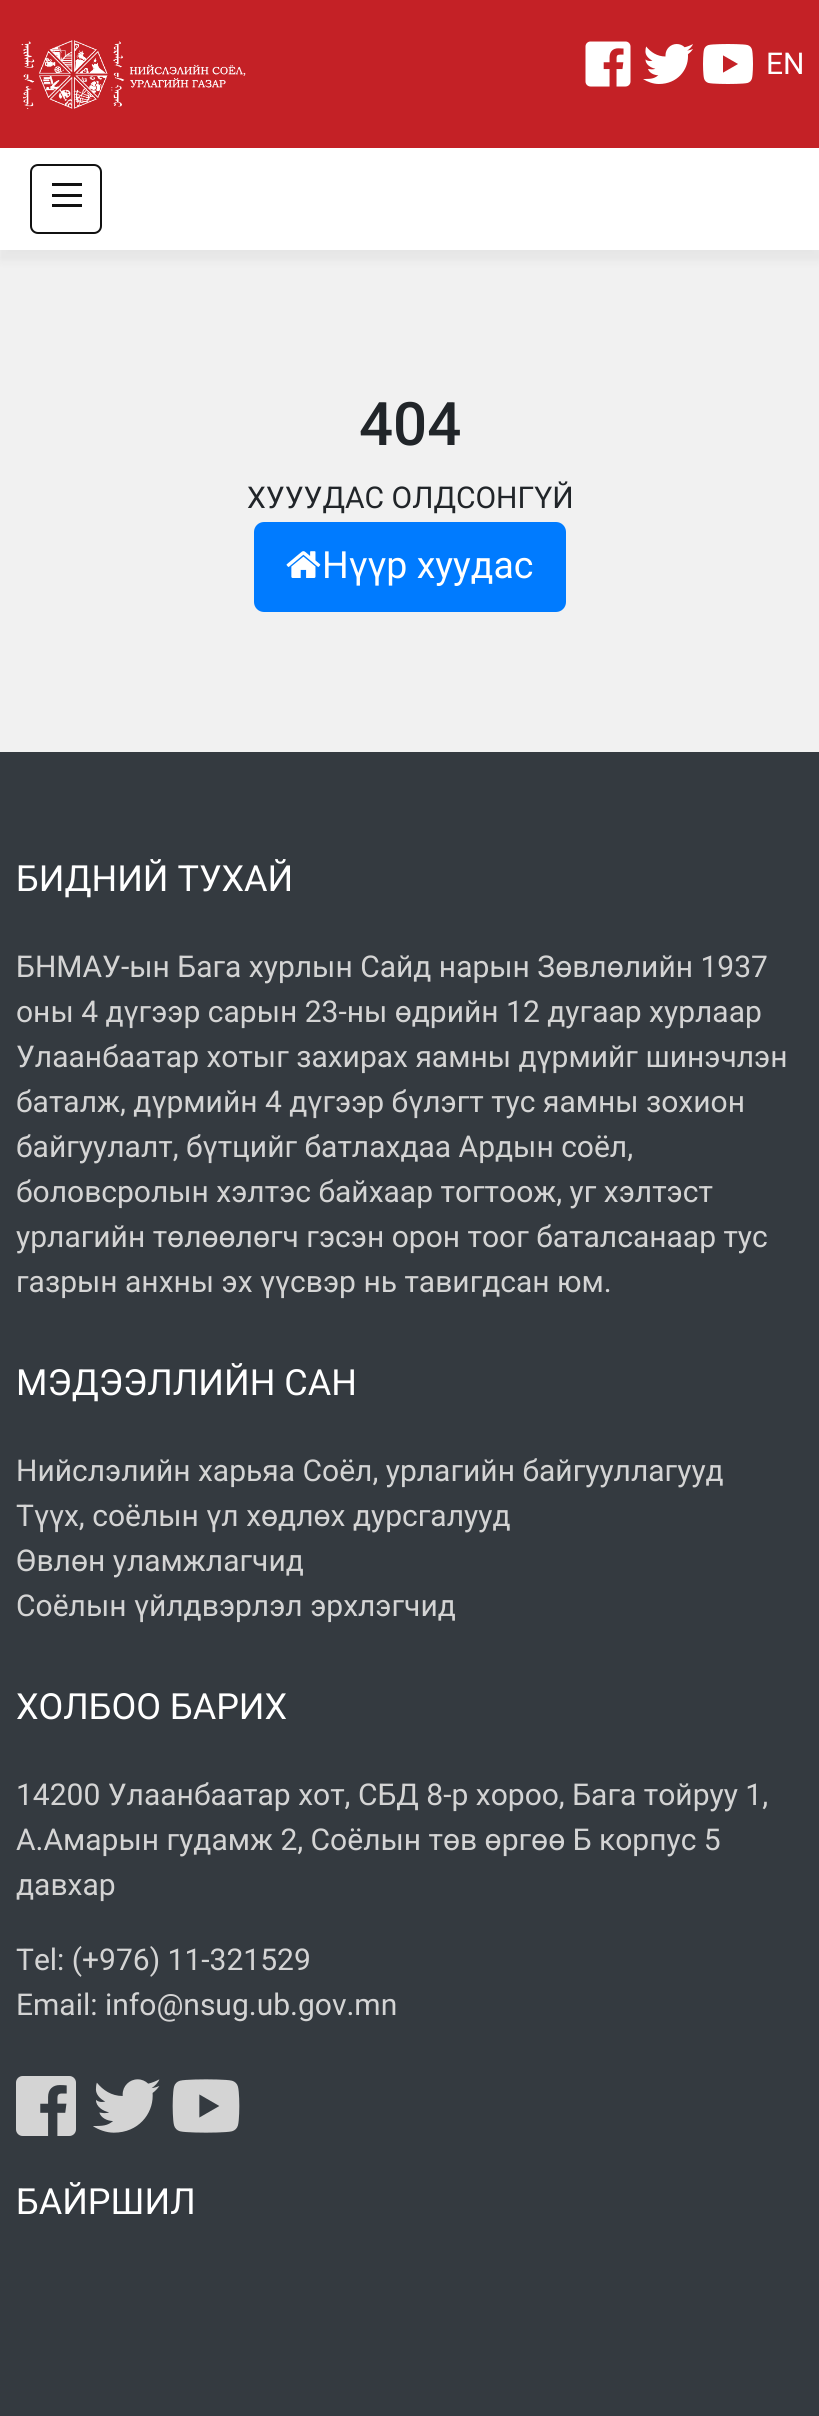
#include <cairo.h>
#include <math.h>
#include <stddef.h>


static void rgb(cairo_t *cr, int r, int g, int b)
{
	cairo_set_source_rgb(cr, r / 255.0, g / 255.0, b / 255.0);
}

static void face(cairo_t *cr, const char *family, double size, int italic, int bold)
{
	cairo_select_font_face(cr, family, italic ? CAIRO_FONT_SLANT_ITALIC : CAIRO_FONT_SLANT_NORMAL,
		bold ? CAIRO_FONT_WEIGHT_BOLD : CAIRO_FONT_WEIGHT_NORMAL);
	cairo_set_font_size(cr, size);
}

static void label(cairo_t *cr, double x, double y, const char *s)
{
	cairo_move_to(cr, x, y);
	cairo_show_text(cr, s);
}

static void rect(cairo_t *cr, double x, double y, double w, double h)
{
	cairo_rectangle(cr, x, y, w, h);
	cairo_fill(cr);
}

static void rrect(cairo_t *cr, double x, double y, double w, double h, double r)
{
	cairo_new_sub_path(cr);
	cairo_arc(cr, x + w - r, y + h - r, r, 0, M_PI / 2);
	cairo_arc(cr, x + r, y + h - r, r, M_PI / 2, M_PI);
	cairo_arc(cr, x + r, y + r, r, M_PI, 1.5 * M_PI);
	cairo_arc(cr, x + w - r, y + r, r, 1.5 * M_PI, 2 * M_PI);
	cairo_close_path(cr);
}

static void soft_shadow(cairo_t *cr, double x, double y, double w, double h, double r, double blur, double alpha)
{
	cairo_push_group_with_content(cr, CAIRO_CONTENT_ALPHA);
	cairo_set_operator(cr, CAIRO_OPERATOR_SOURCE);
	for (int i = 15; i >= -15 && fmin(w, h) + blur * i / 3 > 0; i -= 2) {
		double e = blur * i / 6;
		cairo_set_source_rgba(cr, 0, 0, 0, alpha * erfc((i - 1) / 8.5) / 2);
		rrect(cr, x - e, y - e, w + 2 * e, h + 2 * e, fmax(0, fmin(r + e + blur * .6, fmin(w, h) / 2 + e)));
		cairo_fill(cr);
	}
	cairo_pattern_t *soft = cairo_pop_group(cr);
	cairo_mask(cr, soft);
	cairo_pattern_destroy(soft);
}

static void image(cairo_t *cr, const char *path, double x, double y, double w, double h)
{
	cairo_surface_t *image = cairo_image_surface_create_from_png(path);
	cairo_save(cr);
	cairo_set_source_surface(cr, image, x, y);
	cairo_rectangle(cr, x, y, w, h);
	cairo_fill(cr);
	cairo_restore(cr);
	cairo_surface_destroy(image);
}

static void draw(cairo_t *cr) {
	rgb(cr, 241, 241, 241);
	cairo_paint(cr);
	rgb(cr, 196, 33, 38);
	rect(cr, 0, 0, 819, 148);
	image(cr, "image0.png", 21, 40, 225, 69);
	image(cr, "image1.png", 585, 41, 46, 46);
	image(cr, "image2.png", 643, 44, 50, 40);
	image(cr, "image3.png", 703, 44, 50, 40);
	face(cr, "Roboto", 30, 0, 0);
	rgb(cr, 255, 255, 255);
	label(cr, 766, 74, "EN");
	rgb(cr, 0, 0, 0);
	soft_shadow(cr, 0, 158, 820, 102, 0, 5, 0.05);
	rgb(cr, 255, 255, 255);
	rect(cr, 0, 148, 819, 102);
	rrect(cr, 31, 165, 70, 68, 7);
	rgb(cr, 17, 17, 17);
	cairo_stroke(cr);
	rect(cr, 52, 183, 30, 3);
	rect(cr, 52, 194, 30, 3);
	rect(cr, 52, 204, 30, 3);
	face(cr, "Roboto Medium", 60, 0, 0);
	rgb(cr, 33, 37, 41);
	label(cr, 359, 445, "404");
	face(cr, "Roboto", 30, 0, 0);
	label(cr, 247, 508, "ХУУУДАС ОЛДСОНГҮЙ");
	rgb(cr, 0, 123, 255);
	rrect(cr, 255, 523, 310, 88, 9);
	cairo_fill_preserve(cr);
	cairo_stroke(cr);
	image(cr, "image4.png", 286, 551, 35, 27);
	face(cr, "Roboto", 37.5, 0, 0);
	rgb(cr, 255, 255, 255);
	label(cr, 322, 578, "Нүүр хуудас");
	rgb(cr, 52, 58, 64);
	rect(cr, 0, 752, 819, 1664);
	face(cr, "Roboto", 36, 0, 0);
	rgb(cr, 255, 255, 255);
	label(cr, 16, 891, "БИДНИЙ ТУХАЙ");
	face(cr, "Roboto", 30, 0, 0);
	rgb(cr, 212, 212, 212);
	label(cr, 16, 977, "БНМАУ-ын Бага хурлын Сайд нарын Зөвлөлийн 1937");
	label(cr, 16, 1022, "оны 4 дүгээр сарын 23-ны өдрийн 12 дугаар хурлаар");
	label(cr, 16, 1067, "Улаанбаатар хотыг захирах яамны дүрмийг шинэчлэн");
	label(cr, 16, 1112, "баталж, дүрмийн 4 дүгээр бүлэгт тус яамны зохион");
	label(cr, 16, 1157, "байгуулалт, бүтцийг батлахдаа Ардын соёл,");
	label(cr, 16, 1202, "боловсролын хэлтэс байхаар тогтоож, уг хэлтэст");
	label(cr, 16, 1247, "урлагийн төлөөлөгч гэсэн орон тоог баталсанаар тус");
	label(cr, 16, 1292, "газрын анхны эх үүсвэр нь тавигдсан юм.");
	face(cr, "Roboto", 36, 0, 0);
	rgb(cr, 255, 255, 255);
	label(cr, 16, 1395, "МЭДЭЭЛЛИЙН САН");
	face(cr, "Roboto", 30, 0, 0);
	rgb(cr, 212, 212, 212);
	label(cr, 16, 1481, "Нийслэлийн харьяа Соёл, урлагийн байгууллагууд");
	label(cr, 16, 1526, "Түүх, соёлын үл хөдлөх дурсгалууд");
	label(cr, 16, 1571, "Өвлөн уламжлагчид");
	label(cr, 16, 1616, "Соёлын үйлдвэрлэл эрхлэгчид");
	face(cr, "Roboto", 36, 0, 0);
	rgb(cr, 255, 255, 255);
	label(cr, 16, 1719, "ХОЛБОО БАРИХ");
	face(cr, "Roboto", 30, 0, 0);
	rgb(cr, 212, 212, 212);
	label(cr, 16, 1805, "14200 Улаанбаатар хот, СБД 8-р хороо, Бага тойруу 1,");
	label(cr, 16, 1850, "А.Амарын гудамж 2, Соёлын төв өргөө Б корпус 5");
	label(cr, 16, 1895, "давхар");
	label(cr, 16, 1970, "Tel: (+976) 11-321529");
	label(cr, 16, 2015, "Email: info@nsug.ub.gov.mn");
	image(cr, "image5.png", 16, 2076, 60, 60);
	image(cr, "image6.png", 93, 2079, 67, 54);
	image(cr, "image7.png", 172, 2079, 68, 54);
	face(cr, "Roboto", 36, 0, 0);
	rgb(cr, 255, 255, 255);
	label(cr, 16, 2214, "БАЙРШИЛ");
}

int main(void) {
	cairo_surface_t *surface = cairo_image_surface_create(CAIRO_FORMAT_RGB24, 819, 2416);
	cairo_t *cr = cairo_create(surface);
	cairo_font_options_t *options = cairo_font_options_create();
	cairo_font_options_set_hint_metrics(options, CAIRO_HINT_METRICS_OFF);
	cairo_font_options_set_hint_style(options, CAIRO_HINT_STYLE_NONE);
	cairo_set_font_options(cr, options);
	cairo_set_miter_limit(cr, 4);
	draw(cr);
	cairo_surface_write_to_png(surface, "render.png");
	cairo_font_options_destroy(options);
	cairo_destroy(cr);
	cairo_surface_destroy(surface);
	return 0;
}
